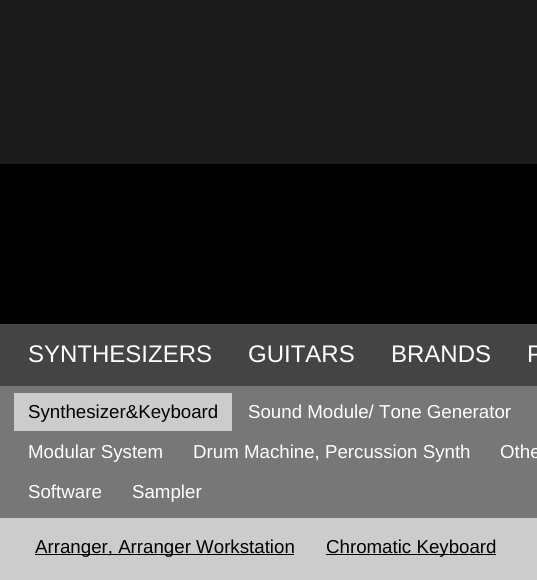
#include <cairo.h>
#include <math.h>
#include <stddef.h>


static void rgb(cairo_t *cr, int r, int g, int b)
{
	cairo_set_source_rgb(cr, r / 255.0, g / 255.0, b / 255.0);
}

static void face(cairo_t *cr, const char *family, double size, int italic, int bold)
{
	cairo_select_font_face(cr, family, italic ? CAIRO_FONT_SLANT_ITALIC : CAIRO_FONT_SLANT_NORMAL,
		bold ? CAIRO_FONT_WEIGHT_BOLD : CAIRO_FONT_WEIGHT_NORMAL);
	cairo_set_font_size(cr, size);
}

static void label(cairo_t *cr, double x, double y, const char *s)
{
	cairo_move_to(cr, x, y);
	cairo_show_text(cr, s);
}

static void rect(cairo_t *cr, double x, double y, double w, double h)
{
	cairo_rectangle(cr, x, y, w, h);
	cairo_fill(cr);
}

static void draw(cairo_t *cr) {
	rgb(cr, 0, 0, 0);
	cairo_paint(cr);
	rgb(cr, 26, 26, 26);
	rect(cr, 0, 0, 537, 164);
	rgb(cr, 68, 68, 68);
	rect(cr, 0, 324, 537, 62);
	face(cr, "Liberation Sans", 24, 0, 0);
	rgb(cr, 255, 255, 255);
	label(cr, 28, 362, "SYNTHESIZERS");
	label(cr, 248, 362, "GUITARS");
	label(cr, 391, 362, "BRANDS");
	label(cr, 527, 362, "P");
	rgb(cr, 119, 119, 119);
	rect(cr, 0, 386, 537, 132);
	rgb(cr, 204, 204, 204);
	rect(cr, 14, 393, 218, 38);
	face(cr, "Liberation Sans", 18.7, 0, 0);
	rgb(cr, 0, 0, 0);
	label(cr, 28, 418, "Synthesizer&Keyboard");
	rgb(cr, 255, 255, 255);
	label(cr, 248, 418, "Sound Module/ Tone Generator");
	label(cr, 28, 458, "Modular System");
	label(cr, 193, 458, "Drum Machine, Percussion Synth");
	label(cr, 500, 458, "Othe");
	label(cr, 28, 498, "Software");
	label(cr, 132, 498, "Sampler");
	rgb(cr, 204, 204, 204);
	rect(cr, 0, 518, 537, 62);
	rgb(cr, 0, 0, 0);
	rect(cr, 35, 554, 259, 1);
	label(cr, 35, 553, "Arranger, Arranger Workstation");
	rect(cr, 326, 554, 170, 1);
	label(cr, 326, 553, "Chromatic Keyboard");
}

int main(void) {
	cairo_surface_t *surface = cairo_image_surface_create(CAIRO_FORMAT_RGB24, 537, 580);
	cairo_t *cr = cairo_create(surface);
	cairo_font_options_t *options = cairo_font_options_create();
	cairo_font_options_set_hint_metrics(options, CAIRO_HINT_METRICS_OFF);
	cairo_font_options_set_hint_style(options, CAIRO_HINT_STYLE_NONE);
	cairo_set_font_options(cr, options);
	cairo_set_miter_limit(cr, 4);
	draw(cr);
	cairo_surface_write_to_png(surface, "render.png");
	cairo_font_options_destroy(options);
	cairo_destroy(cr);
	cairo_surface_destroy(surface);
	return 0;
}
